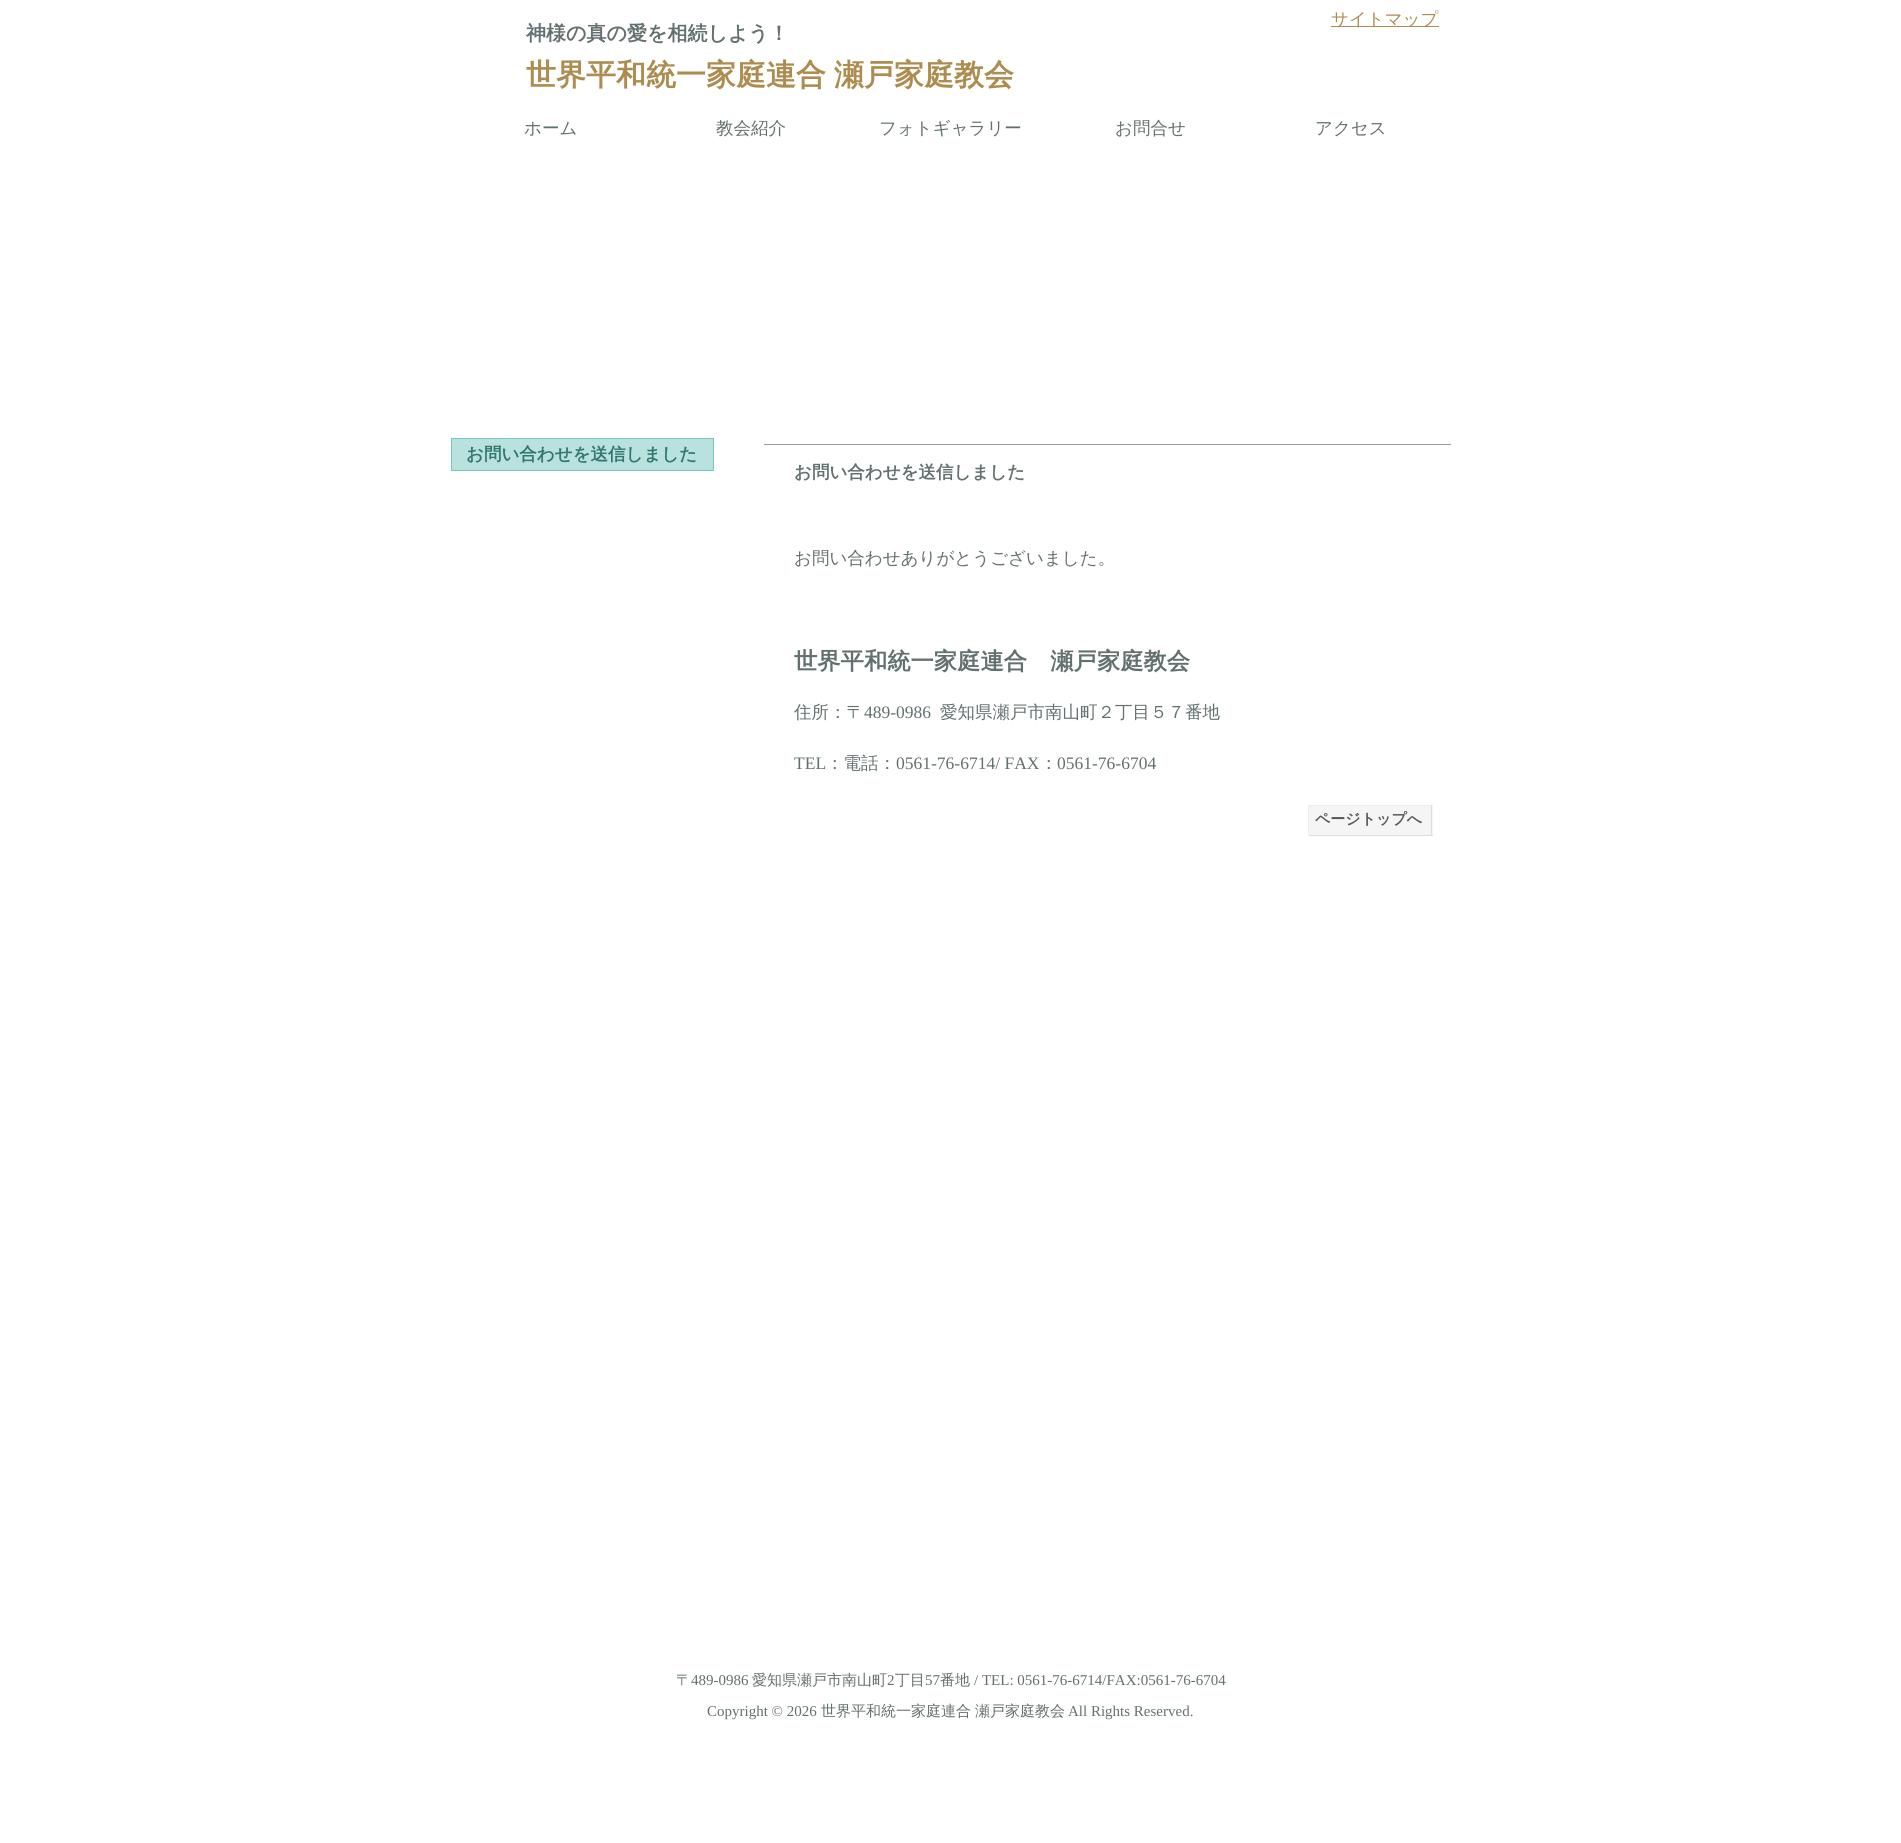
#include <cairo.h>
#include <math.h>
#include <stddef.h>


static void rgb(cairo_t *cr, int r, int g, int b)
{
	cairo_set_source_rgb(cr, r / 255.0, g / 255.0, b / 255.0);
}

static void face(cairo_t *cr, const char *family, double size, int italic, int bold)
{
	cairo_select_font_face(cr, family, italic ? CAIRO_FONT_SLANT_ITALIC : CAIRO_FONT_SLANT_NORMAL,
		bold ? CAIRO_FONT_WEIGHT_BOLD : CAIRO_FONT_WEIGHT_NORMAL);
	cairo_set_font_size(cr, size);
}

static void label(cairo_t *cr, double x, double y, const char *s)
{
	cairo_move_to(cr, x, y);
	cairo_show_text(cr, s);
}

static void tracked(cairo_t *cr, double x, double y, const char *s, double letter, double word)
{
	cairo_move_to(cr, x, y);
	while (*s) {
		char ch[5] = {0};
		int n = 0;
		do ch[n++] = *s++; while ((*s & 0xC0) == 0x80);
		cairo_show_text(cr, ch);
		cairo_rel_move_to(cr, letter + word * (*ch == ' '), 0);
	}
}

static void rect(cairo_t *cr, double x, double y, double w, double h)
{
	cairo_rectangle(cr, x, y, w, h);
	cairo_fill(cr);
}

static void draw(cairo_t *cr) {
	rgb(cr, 255, 255, 255);
	cairo_paint(cr);
	rgb(cr, 173, 141, 79);
	rect(cr, 1331, 26, 108, 1);
	face(cr, "WenQuanYi Zen Hei Medium", 17.5, 0, 0);
	label(cr, 1331, 25, "サイトマップ");
	face(cr, "WenQuanYi Zen Hei", 20, 0, 1);
	rgb(cr, 99, 112, 112);
	label(cr, 526, 40, "神様の真の愛を相続しよう！");
	face(cr, "WenQuanYi Zen Hei", 30, 0, 1);
	rgb(cr, 173, 141, 79);
	tracked(cr, 526, 85, "世界平和統一家庭連合 瀬戸家庭教会", 0, -1);
	face(cr, "WenQuanYi Zen Hei Medium", 17.5, 0, 0);
	rgb(cr, 99, 112, 112);
	label(cr, 524, 134, "ホーム");
	label(cr, 716, 134, "教会紹介");
	label(cr, 879, 134, "フォトギャラリー");
	label(cr, 1115, 134, "お問合せ");
	label(cr, 1315, 134, "アクセス");
	rgb(cr, 185, 226, 222);
	cairo_rectangle(cr, 451.5, 438.5, 262, 32);
	cairo_fill_preserve(cr);
	rgb(cr, 118, 199, 190);
	cairo_set_line_width(cr, 1);
	cairo_stroke(cr);
	face(cr, "WenQuanYi Zen Hei", 17.5, 0, 1);
	rgb(cr, 49, 119, 112);
	label(cr, 466, 460, "お問い合わせを送信しました");
	rgb(cr, 153, 153, 153);
	rect(cr, 764, 444, 687, 1);
	rgb(cr, 99, 112, 112);
	label(cr, 794, 478, "お問い合わせを送信しました");
	face(cr, "WenQuanYi Zen Hei Medium", 17.5, 0, 0);
	label(cr, 794, 564, "お問い合わせありがとうございました。");
	face(cr, "WenQuanYi Zen Hei", 23.3, 0, 1);
	label(cr, 794, 669, "世界平和統一家庭連合　瀬戸家庭教会");
	face(cr, "WenQuanYi Zen Hei Medium", 17.5, 0, 0);
	label(cr, 794, 718, "住所：〒");
	face(cr, "Liberation Serif", 17.5, 0, 0);
	label(cr, 864, 718, "489-0986");
	face(cr, "WenQuanYi Zen Hei Medium", 17.5, 0, 0);
	label(cr, 940, 718, "愛知県瀬戸市南山町２丁目５７番地");
	face(cr, "Liberation Serif", 17.5, 0, 0);
	label(cr, 794, 769, "TEL");
	face(cr, "WenQuanYi Zen Hei Medium", 17.5, 0, 0);
	label(cr, 826, 769, "：電話：");
	face(cr, "Liberation Serif", 17.5, 0, 0);
	label(cr, 896, 769, "0561-76-6714/ FAX");
	face(cr, "WenQuanYi Zen Hei Medium", 17.5, 0, 0);
	label(cr, 1040, 769, "：");
	face(cr, "Liberation Serif", 17.5, 0, 0);
	label(cr, 1057, 769, "0561-76-6704");
	rgb(cr, 245, 245, 245);
	rect(cr, 1309, 806, 124, 29);
	rgb(cr, 238, 238, 238);
	rect(cr, 1308, 805, 125, 1);
	rgb(cr, 222, 222, 222);
	rect(cr, 1431, 805, 1, 31);
	rect(cr, 1308, 835, 125, 1);
	rgb(cr, 238, 238, 238);
	rect(cr, 1308, 805, 1, 31);
	face(cr, "WenQuanYi Zen Hei", 15, 0, 1);
	rgb(cr, 86, 86, 86);
	label(cr, 1315, 824, "ページトップへ");
	face(cr, "WenQuanYi Zen Hei Medium", 15, 0, 0);
	rgb(cr, 99, 112, 112);
	label(cr, 676, 1685, "〒");
	face(cr, "Liberation Serif", 15, 0, 0);
	label(cr, 691, 1685, "489-0986");
	face(cr, "WenQuanYi Zen Hei Medium", 15, 0, 0);
	label(cr, 752, 1685, "愛知県瀬戸市南山町");
	face(cr, "Liberation Serif", 15, 0, 0);
	label(cr, 887, 1685, "2");
	face(cr, "WenQuanYi Zen Hei Medium", 15, 0, 0);
	label(cr, 895, 1685, "丁目");
	face(cr, "Liberation Serif", 15, 0, 0);
	label(cr, 925, 1685, "57");
	face(cr, "WenQuanYi Zen Hei Medium", 15, 0, 0);
	label(cr, 940, 1685, "番地");
	face(cr, "Liberation Serif", 15, 0, 0);
	label(cr, 974, 1685, "/ TEL: 0561-76-6714/FAX:0561-76-6704");
	label(cr, 707, 1716, "Copyright © 2026");
	face(cr, "WenQuanYi Zen Hei Medium", 15, 0, 0);
	label(cr, 821, 1716, "世界平和統一家庭連合");
	label(cr, 975, 1716, "瀬戸家庭教会");
	face(cr, "Liberation Serif", 15, 0, 0);
	label(cr, 1068, 1716, "All Rights Reserved.");
}

int main(void) {
	cairo_surface_t *surface = cairo_image_surface_create(CAIRO_FORMAT_RGB24, 1901, 1843);
	cairo_t *cr = cairo_create(surface);
	cairo_font_options_t *options = cairo_font_options_create();
	cairo_font_options_set_hint_metrics(options, CAIRO_HINT_METRICS_OFF);
	cairo_font_options_set_hint_style(options, CAIRO_HINT_STYLE_NONE);
	cairo_set_font_options(cr, options);
	cairo_set_miter_limit(cr, 4);
	draw(cr);
	cairo_surface_write_to_png(surface, "render.png");
	cairo_font_options_destroy(options);
	cairo_destroy(cr);
	cairo_surface_destroy(surface);
	return 0;
}
